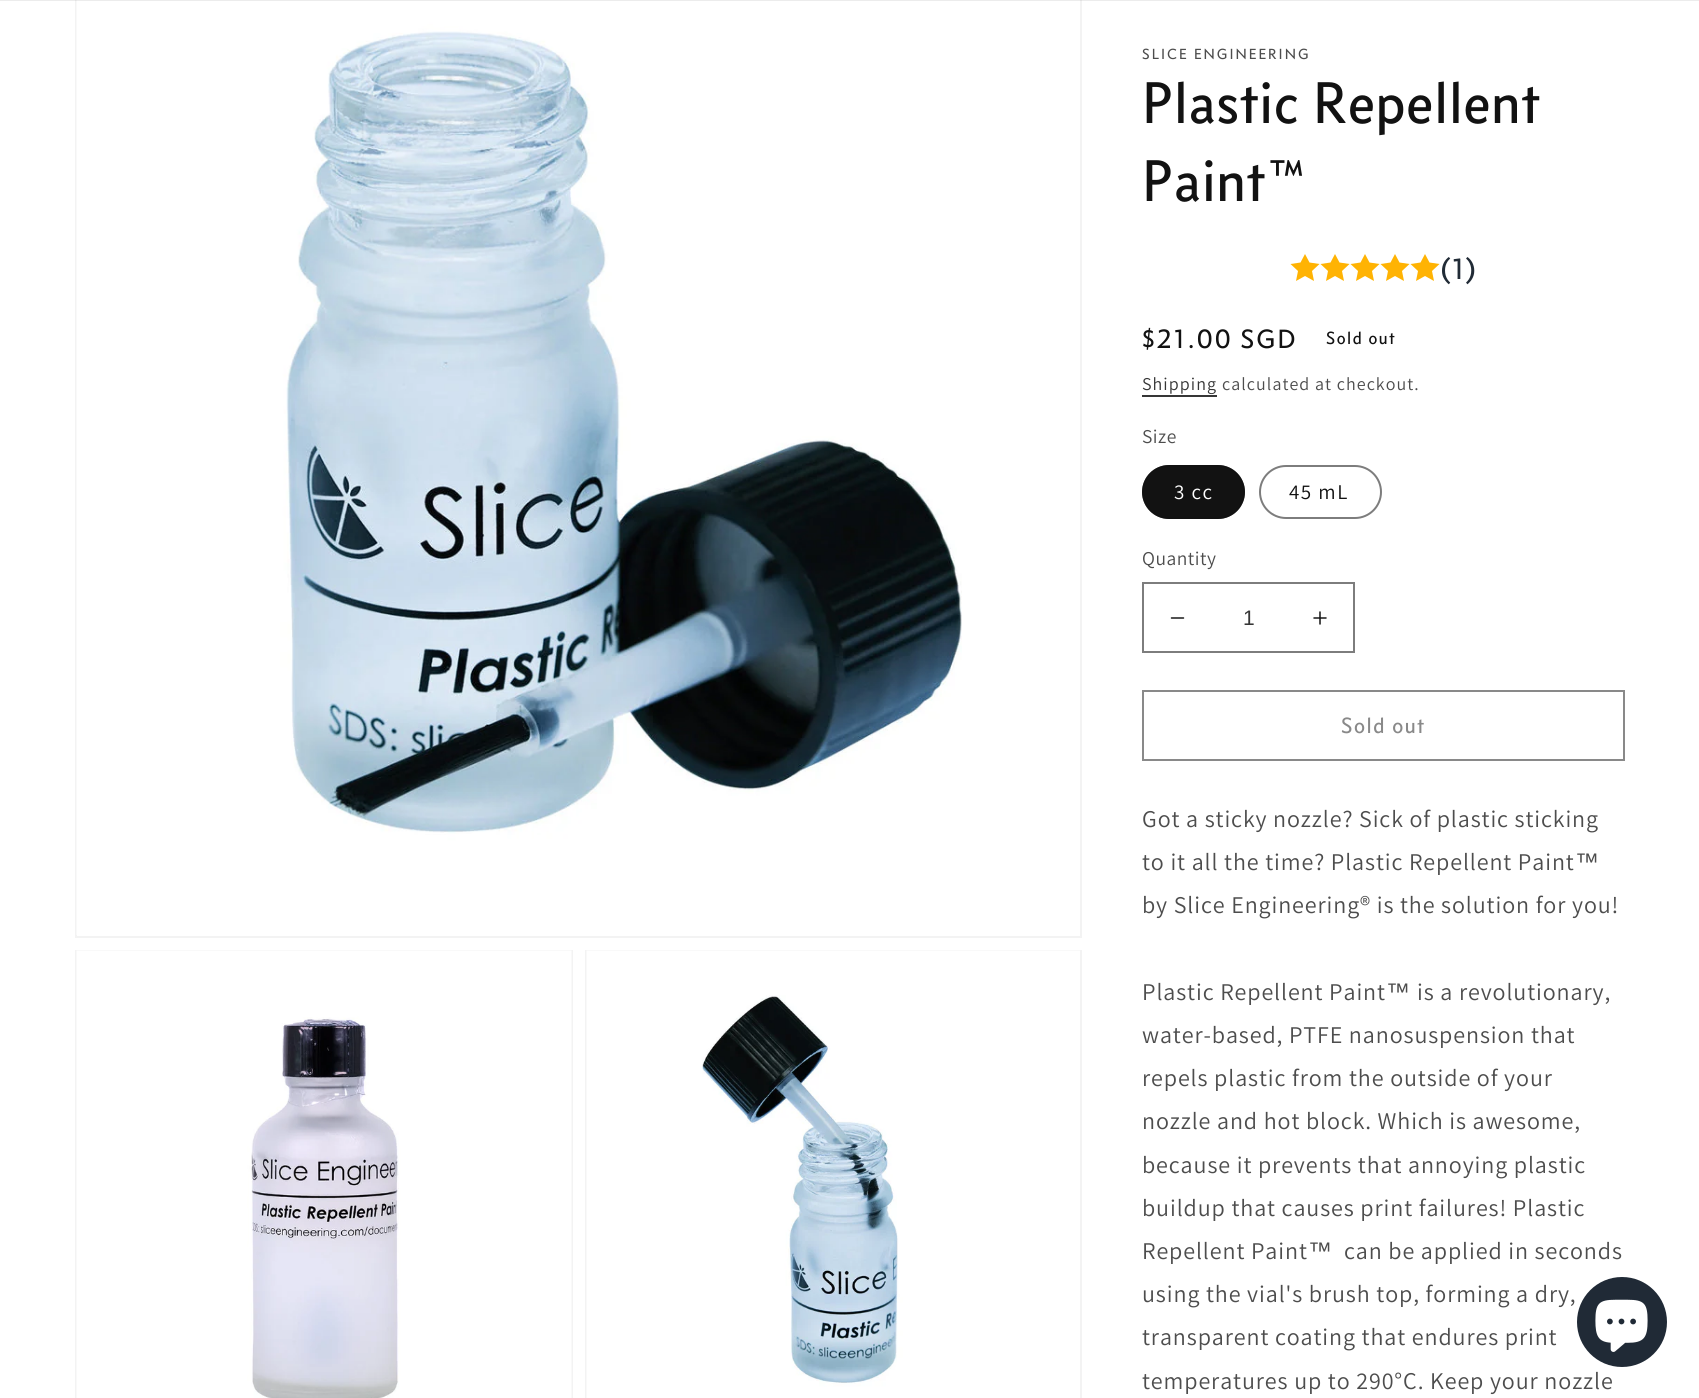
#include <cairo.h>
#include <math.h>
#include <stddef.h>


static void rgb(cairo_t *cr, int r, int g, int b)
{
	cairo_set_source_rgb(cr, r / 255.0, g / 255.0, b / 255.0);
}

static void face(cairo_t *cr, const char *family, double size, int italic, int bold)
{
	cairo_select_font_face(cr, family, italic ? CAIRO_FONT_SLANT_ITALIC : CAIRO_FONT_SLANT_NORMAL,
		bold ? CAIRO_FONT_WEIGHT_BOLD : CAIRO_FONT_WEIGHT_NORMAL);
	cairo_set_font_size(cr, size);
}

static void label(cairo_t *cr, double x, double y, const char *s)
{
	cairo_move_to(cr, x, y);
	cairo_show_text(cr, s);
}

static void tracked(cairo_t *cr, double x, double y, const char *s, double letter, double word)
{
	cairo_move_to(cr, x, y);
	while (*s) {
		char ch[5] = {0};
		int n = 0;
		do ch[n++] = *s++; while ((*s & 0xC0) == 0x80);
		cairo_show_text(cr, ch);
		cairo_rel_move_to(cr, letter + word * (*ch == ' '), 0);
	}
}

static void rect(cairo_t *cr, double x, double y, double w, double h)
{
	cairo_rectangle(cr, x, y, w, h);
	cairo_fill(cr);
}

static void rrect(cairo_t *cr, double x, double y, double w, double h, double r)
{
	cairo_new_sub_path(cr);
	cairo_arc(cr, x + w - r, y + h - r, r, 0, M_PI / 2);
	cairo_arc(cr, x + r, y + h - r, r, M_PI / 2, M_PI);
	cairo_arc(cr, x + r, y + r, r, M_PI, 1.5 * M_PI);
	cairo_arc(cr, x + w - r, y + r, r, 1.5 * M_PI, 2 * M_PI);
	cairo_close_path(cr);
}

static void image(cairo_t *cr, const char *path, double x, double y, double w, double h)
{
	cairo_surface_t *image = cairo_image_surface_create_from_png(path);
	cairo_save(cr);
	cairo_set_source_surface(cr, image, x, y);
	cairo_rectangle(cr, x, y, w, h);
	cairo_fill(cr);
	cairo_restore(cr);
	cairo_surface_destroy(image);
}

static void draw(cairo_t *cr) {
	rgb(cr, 255, 255, 255);
	cairo_paint(cr);
	cairo_rectangle(cr, 76, -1, 1005, 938);
	rgb(cr, 243, 243, 243);
	cairo_stroke(cr);
	image(cr, "image0.png", 76, 0, 886, 935);
	cairo_set_source_rgba(cr, 0.071, 0.071, 0.071, 0.08);
	rect(cr, 0, 0, 1699, 1);
	cairo_rectangle(cr, 76, 951, 496, 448);
	rgb(cr, 243, 243, 243);
	cairo_stroke(cr);
	image(cr, "image1.png", 76, 950, 496, 448);
	cairo_rectangle(cr, 586, 951, 495, 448);
	cairo_stroke(cr);
	image(cr, "image2.png", 586, 950, 494, 448);
	face(cr, "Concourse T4", 15, 0, 0);
	rgb(cr, 77, 77, 77);
	tracked(cr, 1142, 59, "SLICE ENGINEERING", 2, 0);
	face(cr, "Concourse T4", 60, 0, 0);
	rgb(cr, 18, 18, 18);
	tracked(cr, 1142, 123, "Plastic Repellent", 0.9, 0);
	tracked(cr, 1142, 201, "Paint™", 0.9, 0);
	rgb(cr, 255, 179, 3);
	cairo_new_path(cr);
	cairo_move_to(cr, 1305, 254);
	cairo_line_to(cr, 1300.5, 262.5);
	cairo_line_to(cr, 1290.5, 264);
	cairo_line_to(cr, 1298, 271);
	cairo_line_to(cr, 1296, 281);
	cairo_line_to(cr, 1305, 276);
	cairo_line_to(cr, 1314, 281);
	cairo_line_to(cr, 1312, 271);
	cairo_line_to(cr, 1319.5, 264);
	cairo_line_to(cr, 1309.5, 262.5);
	cairo_close_path(cr);
	cairo_move_to(cr, 1335, 254);
	cairo_line_to(cr, 1330.5, 262.5);
	cairo_line_to(cr, 1320.5, 264);
	cairo_line_to(cr, 1328, 271);
	cairo_line_to(cr, 1326, 281);
	cairo_line_to(cr, 1335, 276);
	cairo_line_to(cr, 1344, 281);
	cairo_line_to(cr, 1342, 271);
	cairo_line_to(cr, 1349.5, 264);
	cairo_line_to(cr, 1339.5, 262.5);
	cairo_close_path(cr);
	cairo_fill(cr);
	cairo_new_path(cr);
	cairo_move_to(cr, 1365, 254);
	cairo_line_to(cr, 1360.5, 262.5);
	cairo_line_to(cr, 1350.5, 264);
	cairo_line_to(cr, 1358, 271);
	cairo_line_to(cr, 1356, 281);
	cairo_line_to(cr, 1365, 276);
	cairo_line_to(cr, 1374, 281);
	cairo_line_to(cr, 1372, 271);
	cairo_line_to(cr, 1379.5, 264);
	cairo_line_to(cr, 1369.5, 262.5);
	cairo_close_path(cr);
	cairo_move_to(cr, 1395, 254);
	cairo_line_to(cr, 1390.5, 262.5);
	cairo_line_to(cr, 1380.5, 264);
	cairo_line_to(cr, 1388, 271);
	cairo_line_to(cr, 1386, 281);
	cairo_line_to(cr, 1395, 276);
	cairo_line_to(cr, 1404, 281);
	cairo_line_to(cr, 1402, 271);
	cairo_line_to(cr, 1409.5, 264);
	cairo_line_to(cr, 1399.5, 262.5);
	cairo_close_path(cr);
	cairo_fill(cr);
	cairo_new_path(cr);
	cairo_move_to(cr, 1425, 254);
	cairo_line_to(cr, 1420.5, 262.5);
	cairo_line_to(cr, 1410.5, 264);
	cairo_line_to(cr, 1418, 271);
	cairo_line_to(cr, 1416, 281);
	cairo_line_to(cr, 1425, 276);
	cairo_line_to(cr, 1434, 281);
	cairo_line_to(cr, 1432, 271);
	cairo_line_to(cr, 1439.5, 264);
	cairo_line_to(cr, 1429.5, 262.5);
	cairo_close_path(cr);
	cairo_fill(cr);
	face(cr, "Concourse T4", 30, 0, 0);
	rgb(cr, 33, 43, 54);
	tracked(cr, 1440, 279, "(1)", 0.9, 0);
	face(cr, "Concourse T4", 27, 0, 0);
	rgb(cr, 18, 18, 18);
	tracked(cr, 1142, 348, "$21.00 SGD", 2, 0);
	face(cr, "Concourse T4", 18, 0, 0);
	tracked(cr, 1326, 344, "Sold out", 1.5, 0);
	face(cr, "Assistant", 18, 0, 0);
	rgb(cr, 54, 54, 54);
	tracked(cr, 1142, 390, "Shipping", 1.05, 0);
	rect(cr, 1142, 395, 75, 2);
	rgb(cr, 77, 77, 77);
	tracked(cr, 1222, 390, "calculated at checkout.", 1.05, 0);
	face(cr, "Assistant", 19.5, 0, 0);
	tracked(cr, 1142, 443, "Size", 0.5, 0);
	rgb(cr, 18, 18, 18);
	rrect(cr, 1142, 465, 103, 54, 27);
	cairo_fill(cr);
	rrect(cr, 1143, 466, 101, 52, 26);
	cairo_set_source_rgba(cr, 0.071, 0.071, 0.071, 0.55);
	cairo_stroke(cr);
	face(cr, "Assistant", 21, 0, 0);
	rgb(cr, 255, 255, 255);
	tracked(cr, 1174, 499, "3 cc", 1.5, 0);
	rrect(cr, 1260, 466, 121, 52, 26);
	rgb(cr, 125, 125, 125);
	cairo_stroke(cr);
	rgb(cr, 18, 18, 18);
	tracked(cr, 1289, 499, "45 mL", 1.5, 0);
	face(cr, "Assistant", 19.5, 0, 0);
	rgb(cr, 77, 77, 77);
	tracked(cr, 1142, 565, "Quantity", 0.5, 0);
	image(cr, "image3.png", 1170, 617, 15, 2);
	image(cr, "image4.png", 1313, 611, 14, 14);
	cairo_rectangle(cr, 1143, 583, 211, 69);
	rgb(cr, 125, 125, 125);
	cairo_stroke(cr);
	face(cr, "Liberation Sans", 21, 0, 0);
	rgb(cr, 54, 54, 54);
	label(cr, 1243, 625, "1");
	cairo_rectangle(cr, 1143, 691, 481, 69);
	rgb(cr, 137, 137, 137);
	cairo_stroke(cr);
	face(cr, "Concourse T4", 22.5, 0, 0);
	tracked(cr, 1341, 733, "Sold out", 1.5, 0);
	face(cr, "Assistant", 24, 0, 0);
	rgb(cr, 77, 77, 77);
	tracked(cr, 1142, 827, "Got a sticky nozzle? Sick of plastic sticking", 0.9, 0);
	tracked(cr, 1142, 870, "to it all the time? Plastic Repellent Paint", 0.9, 0);
	face(cr, "Liberation Sans", 24, 0, 0);
	tracked(cr, 1575, 870, "™", 0.9, 0);
	face(cr, "Assistant", 24, 0, 0);
	tracked(cr, 1142, 913, "by Slice Engineering® is the solution for you!", 0.9, 0);
	tracked(cr, 1142, 1000, "Plastic Repellent Paint", 0.9, 0);
	face(cr, "Liberation Sans", 24, 0, 0);
	tracked(cr, 1386, 1000, "™", 0.9, 0);
	face(cr, "Assistant", 24, 0, 0);
	tracked(cr, 1417, 1000, "is a revolutionary,", 0.9, 0);
	tracked(cr, 1142, 1043, "water-based, PTFE nanosuspension that", 0.9, 0);
	tracked(cr, 1142, 1086, "repels plastic from the outside of your", 0.9, 0);
	tracked(cr, 1142, 1129, "nozzle and hot block. Which is awesome,", 0.9, 0);
	tracked(cr, 1142, 1173, "because it prevents that annoying plastic", 0.9, 0);
	tracked(cr, 1142, 1216, "buildup that causes print failures! Plastic", 0.9, 0);
	tracked(cr, 1142, 1259, "Repellent Paint", 0.9, 0);
	face(cr, "Liberation Sans", 24, 0, 0);
	tracked(cr, 1308, 1259, "™", 0.9, 0);
	face(cr, "Assistant", 24, 0, 0);
	tracked(cr, 1344, 1259, "can be applied in seconds", 0.9, 0);
	tracked(cr, 1142, 1302, "using the vial's brush top, forming a dry,", 0.9, 0);
	tracked(cr, 1142, 1345, "transparent coating that endures print", 0.9, 0);
	tracked(cr, 1142, 1389, "temperatures up to 290°C. Keep your nozzle", 0.9, 0);
	rgb(cr, 32, 42, 54);
	cairo_new_path(cr);
	cairo_arc(cr, 1622, 1322, 45, 0, 2 * M_PI);
	cairo_fill(cr);
	image(cr, "image5.png", 1595, 1299, 53, 53);
}

int main(void) {
	cairo_surface_t *surface = cairo_image_surface_create(CAIRO_FORMAT_RGB24, 1699, 1398);
	cairo_t *cr = cairo_create(surface);
	cairo_font_options_t *options = cairo_font_options_create();
	cairo_font_options_set_hint_metrics(options, CAIRO_HINT_METRICS_OFF);
	cairo_font_options_set_hint_style(options, CAIRO_HINT_STYLE_NONE);
	cairo_set_font_options(cr, options);
	cairo_set_miter_limit(cr, 4);
	draw(cr);
	cairo_surface_write_to_png(surface, "render.png");
	cairo_font_options_destroy(options);
	cairo_destroy(cr);
	cairo_surface_destroy(surface);
	return 0;
}
